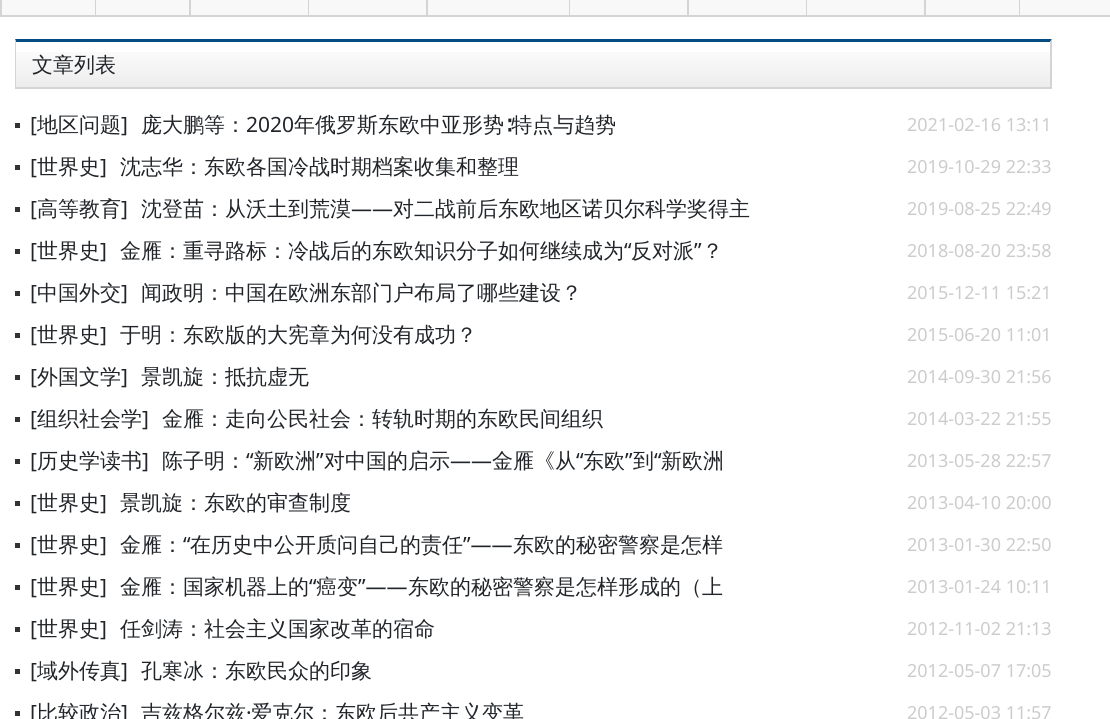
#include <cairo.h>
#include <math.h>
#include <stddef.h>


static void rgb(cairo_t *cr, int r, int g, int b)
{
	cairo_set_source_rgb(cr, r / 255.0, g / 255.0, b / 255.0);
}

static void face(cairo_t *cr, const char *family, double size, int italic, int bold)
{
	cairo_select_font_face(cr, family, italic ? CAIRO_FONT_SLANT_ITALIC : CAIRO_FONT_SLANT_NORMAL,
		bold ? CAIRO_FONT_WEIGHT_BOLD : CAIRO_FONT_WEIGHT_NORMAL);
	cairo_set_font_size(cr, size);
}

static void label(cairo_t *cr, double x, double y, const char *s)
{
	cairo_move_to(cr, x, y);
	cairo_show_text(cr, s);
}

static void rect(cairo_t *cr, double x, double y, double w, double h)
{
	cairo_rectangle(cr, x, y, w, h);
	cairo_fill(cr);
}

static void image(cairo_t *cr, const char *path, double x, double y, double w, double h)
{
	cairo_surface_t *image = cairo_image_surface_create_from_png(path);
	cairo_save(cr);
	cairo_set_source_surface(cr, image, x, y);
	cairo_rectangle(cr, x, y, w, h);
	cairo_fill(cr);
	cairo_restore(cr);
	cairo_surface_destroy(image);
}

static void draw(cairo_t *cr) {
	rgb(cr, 255, 255, 255);
	cairo_paint(cr);
	rgb(cr, 248, 248, 248);
	rect(cr, 2, 0, 1017, 15);
	rgb(cr, 212, 212, 212);
	rect(cr, 0, 15, 1110, 2);
	cairo_save(cr);
	cairo_rectangle(cr, 0, 0, 1110, 15);
	cairo_clip(cr);
	cairo_new_path(cr);
	cairo_move_to(cr, 0, 21);
	cairo_line_to(cr, 0, -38);
	cairo_line_to(cr, 2, -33);
	cairo_line_to(cr, 2, 21);
	cairo_close_path(cr);
	cairo_fill(cr);
	cairo_restore(cr);
	rect(cr, 95, 0, 1, 15);
	rect(cr, 189, 0, 2, 15);
	rect(cr, 308, 0, 1, 15);
	rect(cr, 426, 0, 2, 15);
	rect(cr, 569, 0, 1, 15);
	rect(cr, 687, 0, 2, 15);
	rect(cr, 806, 0, 1, 15);
	rect(cr, 924, 0, 2, 15);
	rect(cr, 1019, 0, 1, 15);
	rgb(cr, 248, 248, 248);
	rect(cr, 1020, 0, 90, 15);
	image(cr, "image0.png", 16, 52, 1034, 35);
	rgb(cr, 4, 76, 130);
	cairo_new_path(cr);
	cairo_move_to(cr, 15, 39);
	cairo_line_to(cr, 1052, 39);
	cairo_line_to(cr, 1050, 42);
	cairo_line_to(cr, 16, 42);
	cairo_close_path(cr);
	cairo_fill(cr);
	rgb(cr, 212, 212, 212);
	cairo_new_path(cr);
	cairo_move_to(cr, 1052, 39);
	cairo_line_to(cr, 1052, 88);
	cairo_line_to(cr, 1050, 87);
	cairo_line_to(cr, 1050, 42);
	cairo_close_path(cr);
	cairo_fill(cr);
	rect(cr, 15, 87, 1037, 2);
	cairo_new_path(cr);
	cairo_move_to(cr, 15, 88);
	cairo_line_to(cr, 15, 39);
	cairo_line_to(cr, 16, 42);
	cairo_line_to(cr, 16, 87);
	cairo_close_path(cr);
	cairo_fill(cr);
	face(cr, "WenQuanYi Zen Hei Medium", 21, 0, 0);
	rgb(cr, 33, 37, 41);
	label(cr, 32, 72, "文章列表");
	rgb(cr, 51, 51, 51);
	rect(cr, 15, 123, 5, 5);
	face(cr, "Noto Sans", 21, 0, 0);
	rgb(cr, 33, 37, 41);
	label(cr, 30, 132, "[");
	face(cr, "WenQuanYi Zen Hei Medium", 21, 0, 0);
	label(cr, 37, 132, "地区问题");
	face(cr, "Noto Sans", 21, 0, 0);
	label(cr, 121, 132, "]");
	face(cr, "WenQuanYi Zen Hei Medium", 21, 0, 0);
	label(cr, 141, 132, "庞大鹏等：");
	face(cr, "Noto Sans", 21, 0, 0);
	label(cr, 246, 132, "2020");
	face(cr, "WenQuanYi Zen Hei Medium", 21, 0, 0);
	label(cr, 294, 132, "年俄罗斯东欧中亚形势∶特点与趋势");
	face(cr, "Noto Sans", 18, 0, 0);
	rgb(cr, 204, 204, 204);
	label(cr, 907, 131, "2021-02-16 13:11");
	rgb(cr, 51, 51, 51);
	rect(cr, 15, 165, 5, 5);
	face(cr, "Noto Sans", 21, 0, 0);
	rgb(cr, 33, 37, 41);
	label(cr, 30, 174, "[");
	face(cr, "WenQuanYi Zen Hei Medium", 21, 0, 0);
	label(cr, 37, 174, "世界史");
	face(cr, "Noto Sans", 21, 0, 0);
	label(cr, 100, 174, "]");
	face(cr, "WenQuanYi Zen Hei Medium", 21, 0, 0);
	label(cr, 120, 174, "沈志华：东欧各国冷战时期档案收集和整理");
	face(cr, "Noto Sans", 18, 0, 0);
	rgb(cr, 204, 204, 204);
	label(cr, 907, 173, "2019-10-29 22:33");
	rgb(cr, 51, 51, 51);
	rect(cr, 15, 207, 5, 5);
	face(cr, "Noto Sans", 21, 0, 0);
	rgb(cr, 33, 37, 41);
	label(cr, 30, 216, "[");
	face(cr, "WenQuanYi Zen Hei Medium", 21, 0, 0);
	label(cr, 37, 216, "高等教育");
	face(cr, "Noto Sans", 21, 0, 0);
	label(cr, 121, 216, "]");
	face(cr, "WenQuanYi Zen Hei Medium", 21, 0, 0);
	label(cr, 141, 216, "沈登苗：从沃土到荒漠");
	face(cr, "Noto Sans", 21, 0, 0);
	label(cr, 351, 216, "——");
	face(cr, "WenQuanYi Zen Hei Medium", 21, 0, 0);
	label(cr, 393, 216, "对二战前后东欧地区诺贝尔科学奖得主");
	face(cr, "Noto Sans", 18, 0, 0);
	rgb(cr, 204, 204, 204);
	label(cr, 907, 215, "2019-08-25 22:49");
	rgb(cr, 51, 51, 51);
	rect(cr, 15, 249, 5, 5);
	face(cr, "Noto Sans", 21, 0, 0);
	rgb(cr, 33, 37, 41);
	label(cr, 30, 258, "[");
	face(cr, "WenQuanYi Zen Hei Medium", 21, 0, 0);
	label(cr, 37, 258, "世界史");
	face(cr, "Noto Sans", 21, 0, 0);
	label(cr, 100, 258, "]");
	face(cr, "WenQuanYi Zen Hei Medium", 21, 0, 0);
	label(cr, 120, 258, "金雁：重寻路标：冷战后的东欧知识分子如何继续成为");
	face(cr, "Noto Sans", 21, 0, 0);
	label(cr, 624, 258, "“");
	face(cr, "WenQuanYi Zen Hei Medium", 21, 0, 0);
	label(cr, 631, 258, "反对派");
	face(cr, "Noto Sans", 21, 0, 0);
	label(cr, 694, 258, "”");
	face(cr, "WenQuanYi Zen Hei Medium", 21, 0, 0);
	label(cr, 702, 258, "？");
	face(cr, "Noto Sans", 18, 0, 0);
	rgb(cr, 204, 204, 204);
	label(cr, 907, 257, "2018-08-20 23:58");
	rgb(cr, 51, 51, 51);
	rect(cr, 15, 291, 5, 5);
	face(cr, "Noto Sans", 21, 0, 0);
	rgb(cr, 33, 37, 41);
	label(cr, 30, 300, "[");
	face(cr, "WenQuanYi Zen Hei Medium", 21, 0, 0);
	label(cr, 37, 300, "中国外交");
	face(cr, "Noto Sans", 21, 0, 0);
	label(cr, 121, 300, "]");
	face(cr, "WenQuanYi Zen Hei Medium", 21, 0, 0);
	label(cr, 141, 300, "闻政明：中国在欧洲东部门户布局了哪些建设？");
	face(cr, "Noto Sans", 18, 0, 0);
	rgb(cr, 204, 204, 204);
	label(cr, 907, 299, "2015-12-11 15:21");
	rgb(cr, 51, 51, 51);
	rect(cr, 15, 333, 5, 5);
	face(cr, "Noto Sans", 21, 0, 0);
	rgb(cr, 33, 37, 41);
	label(cr, 30, 342, "[");
	face(cr, "WenQuanYi Zen Hei Medium", 21, 0, 0);
	label(cr, 37, 342, "世界史");
	face(cr, "Noto Sans", 21, 0, 0);
	label(cr, 100, 342, "]");
	face(cr, "WenQuanYi Zen Hei Medium", 21, 0, 0);
	label(cr, 120, 342, "于明：东欧版的大宪章为何没有成功？");
	face(cr, "Noto Sans", 18, 0, 0);
	rgb(cr, 204, 204, 204);
	label(cr, 907, 341, "2015-06-20 11:01");
	rgb(cr, 51, 51, 51);
	rect(cr, 15, 375, 5, 5);
	face(cr, "Noto Sans", 21, 0, 0);
	rgb(cr, 33, 37, 41);
	label(cr, 30, 384, "[");
	face(cr, "WenQuanYi Zen Hei Medium", 21, 0, 0);
	label(cr, 37, 384, "外国文学");
	face(cr, "Noto Sans", 21, 0, 0);
	label(cr, 121, 384, "]");
	face(cr, "WenQuanYi Zen Hei Medium", 21, 0, 0);
	label(cr, 141, 384, "景凯旋：抵抗虚无");
	face(cr, "Noto Sans", 18, 0, 0);
	rgb(cr, 204, 204, 204);
	label(cr, 907, 383, "2014-09-30 21:56");
	rgb(cr, 51, 51, 51);
	rect(cr, 15, 417, 5, 5);
	face(cr, "Noto Sans", 21, 0, 0);
	rgb(cr, 33, 37, 41);
	label(cr, 30, 426, "[");
	face(cr, "WenQuanYi Zen Hei Medium", 21, 0, 0);
	label(cr, 37, 426, "组织社会学");
	face(cr, "Noto Sans", 21, 0, 0);
	label(cr, 142, 426, "]");
	face(cr, "WenQuanYi Zen Hei Medium", 21, 0, 0);
	label(cr, 162, 426, "金雁：走向公民社会：转轨时期的东欧民间组织");
	face(cr, "Noto Sans", 18, 0, 0);
	rgb(cr, 204, 204, 204);
	label(cr, 907, 425, "2014-03-22 21:55");
	rgb(cr, 51, 51, 51);
	rect(cr, 15, 459, 5, 5);
	face(cr, "Noto Sans", 21, 0, 0);
	rgb(cr, 33, 37, 41);
	label(cr, 30, 468, "[");
	face(cr, "WenQuanYi Zen Hei Medium", 21, 0, 0);
	label(cr, 37, 468, "历史学读书");
	face(cr, "Noto Sans", 21, 0, 0);
	label(cr, 142, 468, "]");
	face(cr, "WenQuanYi Zen Hei Medium", 21, 0, 0);
	label(cr, 162, 468, "陈子明：");
	face(cr, "Noto Sans", 21, 0, 0);
	label(cr, 246, 468, "“");
	face(cr, "WenQuanYi Zen Hei Medium", 21, 0, 0);
	label(cr, 253, 468, "新欧洲");
	face(cr, "Noto Sans", 21, 0, 0);
	label(cr, 316, 468, "”");
	face(cr, "WenQuanYi Zen Hei Medium", 21, 0, 0);
	label(cr, 324, 468, "对中国的启示");
	label(cr, 492, 468, "金雁《从");
	face(cr, "Noto Sans", 21, 0, 0);
	label(cr, 576, 468, "“");
	face(cr, "WenQuanYi Zen Hei Medium", 21, 0, 0);
	label(cr, 583, 468, "东欧");
	face(cr, "Noto Sans", 21, 0, 0);
	label(cr, 625, 468, "”");
	face(cr, "WenQuanYi Zen Hei Medium", 21, 0, 0);
	label(cr, 633, 468, "到");
	face(cr, "Noto Sans", 21, 0, 0);
	label(cr, 654, 468, "“");
	face(cr, "WenQuanYi Zen Hei Medium", 21, 0, 0);
	label(cr, 661, 468, "新欧洲");
	face(cr, "Noto Sans", 21, 0, 0);
	label(cr, 450, 468, "——");
	face(cr, "Noto Sans", 18, 0, 0);
	rgb(cr, 204, 204, 204);
	label(cr, 907, 467, "2013-05-28 22:57");
	rgb(cr, 51, 51, 51);
	rect(cr, 15, 501, 5, 5);
	face(cr, "Noto Sans", 21, 0, 0);
	rgb(cr, 33, 37, 41);
	label(cr, 30, 510, "[");
	face(cr, "WenQuanYi Zen Hei Medium", 21, 0, 0);
	label(cr, 37, 510, "世界史");
	face(cr, "Noto Sans", 21, 0, 0);
	label(cr, 100, 510, "]");
	face(cr, "WenQuanYi Zen Hei Medium", 21, 0, 0);
	label(cr, 120, 510, "景凯旋：东欧的审查制度");
	face(cr, "Noto Sans", 18, 0, 0);
	rgb(cr, 204, 204, 204);
	label(cr, 907, 509, "2013-04-10 20:00");
	rgb(cr, 51, 51, 51);
	rect(cr, 15, 543, 5, 5);
	face(cr, "Noto Sans", 21, 0, 0);
	rgb(cr, 33, 37, 41);
	label(cr, 30, 552, "[");
	face(cr, "WenQuanYi Zen Hei Medium", 21, 0, 0);
	label(cr, 37, 552, "世界史");
	face(cr, "Noto Sans", 21, 0, 0);
	label(cr, 100, 552, "]");
	face(cr, "WenQuanYi Zen Hei Medium", 21, 0, 0);
	label(cr, 120, 552, "金雁：");
	face(cr, "Noto Sans", 21, 0, 0);
	label(cr, 183, 552, "“");
	face(cr, "WenQuanYi Zen Hei Medium", 21, 0, 0);
	label(cr, 190, 552, "在历史中公开质问自己的责任");
	face(cr, "Noto Sans", 21, 0, 0);
	label(cr, 463, 552, "”——");
	face(cr, "WenQuanYi Zen Hei Medium", 21, 0, 0);
	label(cr, 513, 552, "东欧的秘密警察是怎样");
	face(cr, "Noto Sans", 18, 0, 0);
	rgb(cr, 204, 204, 204);
	label(cr, 907, 551, "2013-01-30 22:50");
	rgb(cr, 51, 51, 51);
	rect(cr, 15, 585, 5, 5);
	face(cr, "Noto Sans", 21, 0, 0);
	rgb(cr, 33, 37, 41);
	label(cr, 30, 594, "[");
	face(cr, "WenQuanYi Zen Hei Medium", 21, 0, 0);
	label(cr, 37, 594, "世界史");
	face(cr, "Noto Sans", 21, 0, 0);
	label(cr, 100, 594, "]");
	face(cr, "WenQuanYi Zen Hei Medium", 21, 0, 0);
	label(cr, 120, 594, "金雁：国家机器上的");
	face(cr, "Noto Sans", 21, 0, 0);
	label(cr, 309, 594, "“");
	face(cr, "WenQuanYi Zen Hei Medium", 21, 0, 0);
	label(cr, 316, 594, "癌变");
	face(cr, "Noto Sans", 21, 0, 0);
	label(cr, 358, 594, "”——");
	face(cr, "WenQuanYi Zen Hei Medium", 21, 0, 0);
	label(cr, 408, 594, "东欧的秘密警察是怎样形成的（上");
	face(cr, "Noto Sans", 18, 0, 0);
	rgb(cr, 204, 204, 204);
	label(cr, 907, 593, "2013-01-24 10:11");
	rgb(cr, 51, 51, 51);
	rect(cr, 15, 627, 5, 5);
	face(cr, "Noto Sans", 21, 0, 0);
	rgb(cr, 33, 37, 41);
	label(cr, 30, 636, "[");
	face(cr, "WenQuanYi Zen Hei Medium", 21, 0, 0);
	label(cr, 37, 636, "世界史");
	face(cr, "Noto Sans", 21, 0, 0);
	label(cr, 100, 636, "]");
	face(cr, "WenQuanYi Zen Hei Medium", 21, 0, 0);
	label(cr, 120, 636, "任剑涛：社会主义国家改革的宿命");
	face(cr, "Noto Sans", 18, 0, 0);
	rgb(cr, 204, 204, 204);
	label(cr, 907, 635, "2012-11-02 21:13");
	rgb(cr, 51, 51, 51);
	rect(cr, 15, 669, 5, 5);
	face(cr, "Noto Sans", 21, 0, 0);
	rgb(cr, 33, 37, 41);
	label(cr, 30, 678, "[");
	face(cr, "WenQuanYi Zen Hei Medium", 21, 0, 0);
	label(cr, 37, 678, "域外传真");
	face(cr, "Noto Sans", 21, 0, 0);
	label(cr, 121, 678, "]");
	face(cr, "WenQuanYi Zen Hei Medium", 21, 0, 0);
	label(cr, 141, 678, "孔寒冰：东欧民众的印象");
	face(cr, "Noto Sans", 18, 0, 0);
	rgb(cr, 204, 204, 204);
	label(cr, 907, 677, "2012-05-07 17:05");
	rgb(cr, 51, 51, 51);
	rect(cr, 15, 711, 5, 5);
	face(cr, "Noto Sans", 21, 0, 0);
	rgb(cr, 33, 37, 41);
	label(cr, 30, 720, "[");
	face(cr, "WenQuanYi Zen Hei Medium", 21, 0, 0);
	label(cr, 37, 720, "比较政治");
	face(cr, "Noto Sans", 21, 0, 0);
	label(cr, 121, 720, "]");
	face(cr, "WenQuanYi Zen Hei Medium", 21, 0, 0);
	label(cr, 141, 720, "吉兹格尔兹");
	face(cr, "Noto Sans", 21, 0, 0);
	label(cr, 246, 720, "·");
	face(cr, "WenQuanYi Zen Hei Medium", 21, 0, 0);
	label(cr, 251, 720, "爱克尔：东欧后共产主义变革");
	face(cr, "Noto Sans", 18, 0, 0);
	rgb(cr, 204, 204, 204);
	label(cr, 907, 719, "2012-05-03 11:57");
}

int main(void) {
	cairo_surface_t *surface = cairo_image_surface_create(CAIRO_FORMAT_RGB24, 1110, 719);
	cairo_t *cr = cairo_create(surface);
	cairo_font_options_t *options = cairo_font_options_create();
	cairo_font_options_set_hint_metrics(options, CAIRO_HINT_METRICS_OFF);
	cairo_font_options_set_hint_style(options, CAIRO_HINT_STYLE_NONE);
	cairo_set_font_options(cr, options);
	cairo_set_miter_limit(cr, 4);
	draw(cr);
	cairo_surface_write_to_png(surface, "render.png");
	cairo_font_options_destroy(options);
	cairo_destroy(cr);
	cairo_surface_destroy(surface);
	return 0;
}
